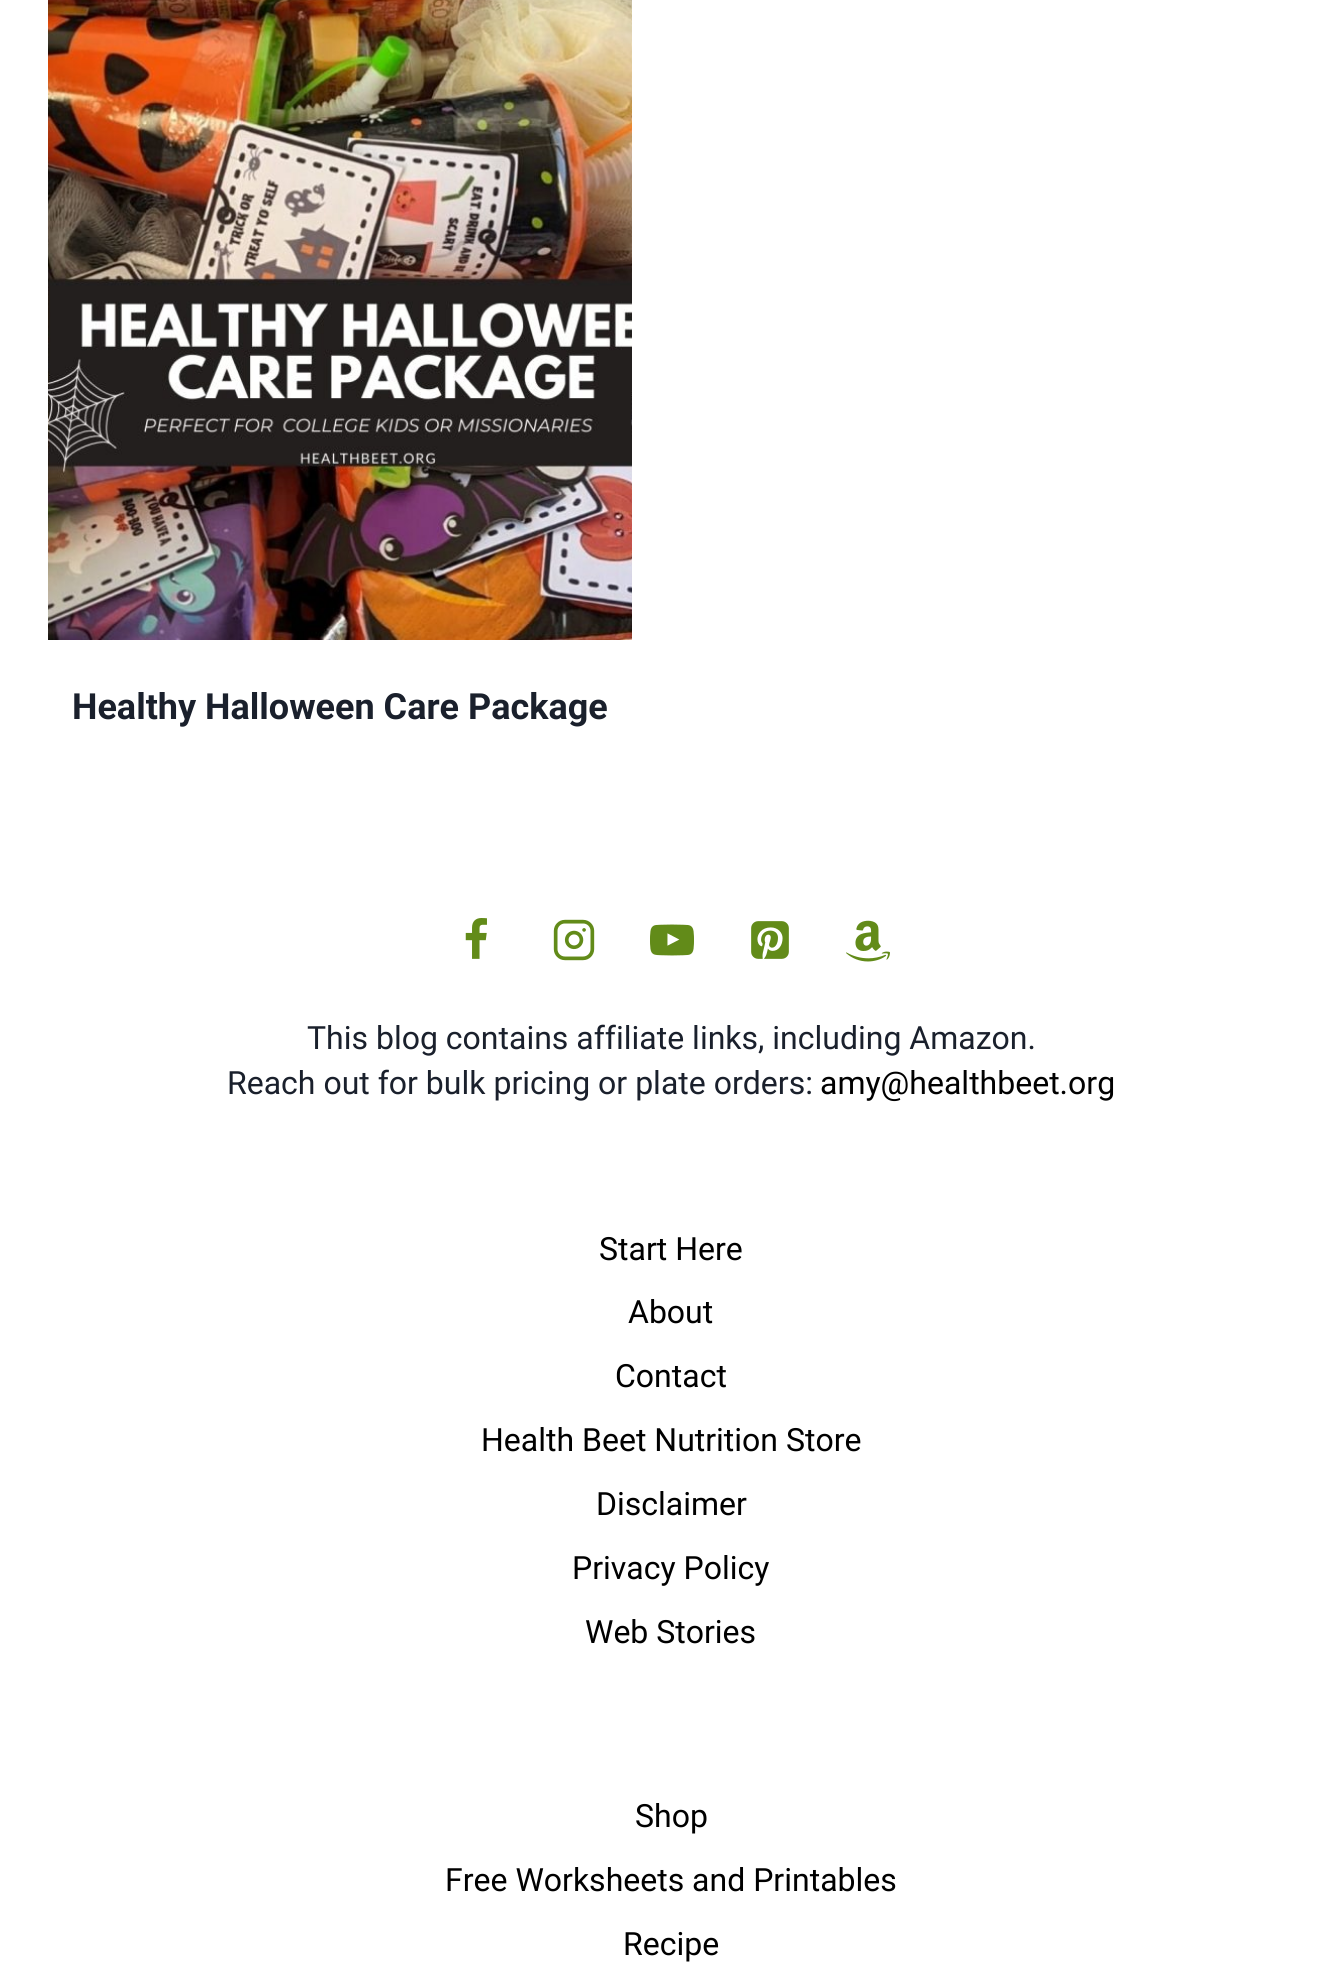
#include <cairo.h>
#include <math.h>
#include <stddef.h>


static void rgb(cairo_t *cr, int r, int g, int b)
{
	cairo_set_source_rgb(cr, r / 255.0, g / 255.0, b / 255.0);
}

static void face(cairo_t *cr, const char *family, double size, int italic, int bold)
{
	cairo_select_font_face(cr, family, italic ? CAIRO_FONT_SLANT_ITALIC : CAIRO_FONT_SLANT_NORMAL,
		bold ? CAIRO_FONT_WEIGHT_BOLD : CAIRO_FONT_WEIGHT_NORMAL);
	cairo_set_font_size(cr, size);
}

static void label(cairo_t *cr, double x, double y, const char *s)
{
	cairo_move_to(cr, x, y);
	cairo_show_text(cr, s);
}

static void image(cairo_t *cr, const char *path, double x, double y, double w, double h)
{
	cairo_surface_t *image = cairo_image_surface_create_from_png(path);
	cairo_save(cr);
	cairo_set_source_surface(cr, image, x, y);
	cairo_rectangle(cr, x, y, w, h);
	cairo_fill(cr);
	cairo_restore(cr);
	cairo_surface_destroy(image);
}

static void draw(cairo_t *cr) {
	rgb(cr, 255, 255, 255);
	cairo_paint(cr);
	image(cr, "image0.png", 48, 0, 584, 640);
	face(cr, "Roboto", 36, 0, 1);
	rgb(cr, 26, 32, 44);
	label(cr, 72, 719, "Healthy Halloween Care Package");
	image(cr, "image1.png", 465, 918, 22, 41);
	image(cr, "image2.png", 553, 919, 42, 42);
	image(cr, "image3.png", 650, 924, 44, 32);
	image(cr, "image4.png", 751, 921, 38, 38);
	image(cr, "image5.png", 846, 920, 44, 42);
	face(cr, "Roboto", 32, 0, 0);
	label(cr, 307, 1049, "This blog contains affiliate links, including Amazon.");
	label(cr, 227, 1094, "Reach out for bulk pricing or plate orders:");
	rgb(cr, 0, 0, 0);
	label(cr, 820, 1094, "amy@healthbeet.org");
	label(cr, 599, 1260, "Start Here");
	label(cr, 628, 1323, "About");
	label(cr, 615, 1387, "Contact");
	label(cr, 481, 1451, "Health Beet Nutrition Store");
	label(cr, 596, 1515, "Disclaimer");
	label(cr, 572, 1579, "Privacy Policy");
	label(cr, 585, 1643, "Web Stories");
	label(cr, 635, 1827, "Shop");
	label(cr, 445, 1891, "Free Worksheets and Printables");
	label(cr, 623, 1955, "Recipe");
}

int main(void) {
	cairo_surface_t *surface = cairo_image_surface_create(CAIRO_FORMAT_RGB24, 1341, 1970);
	cairo_t *cr = cairo_create(surface);
	cairo_font_options_t *options = cairo_font_options_create();
	cairo_font_options_set_hint_metrics(options, CAIRO_HINT_METRICS_OFF);
	cairo_font_options_set_hint_style(options, CAIRO_HINT_STYLE_NONE);
	cairo_set_font_options(cr, options);
	cairo_set_miter_limit(cr, 4);
	draw(cr);
	cairo_surface_write_to_png(surface, "render.png");
	cairo_font_options_destroy(options);
	cairo_destroy(cr);
	cairo_surface_destroy(surface);
	return 0;
}
